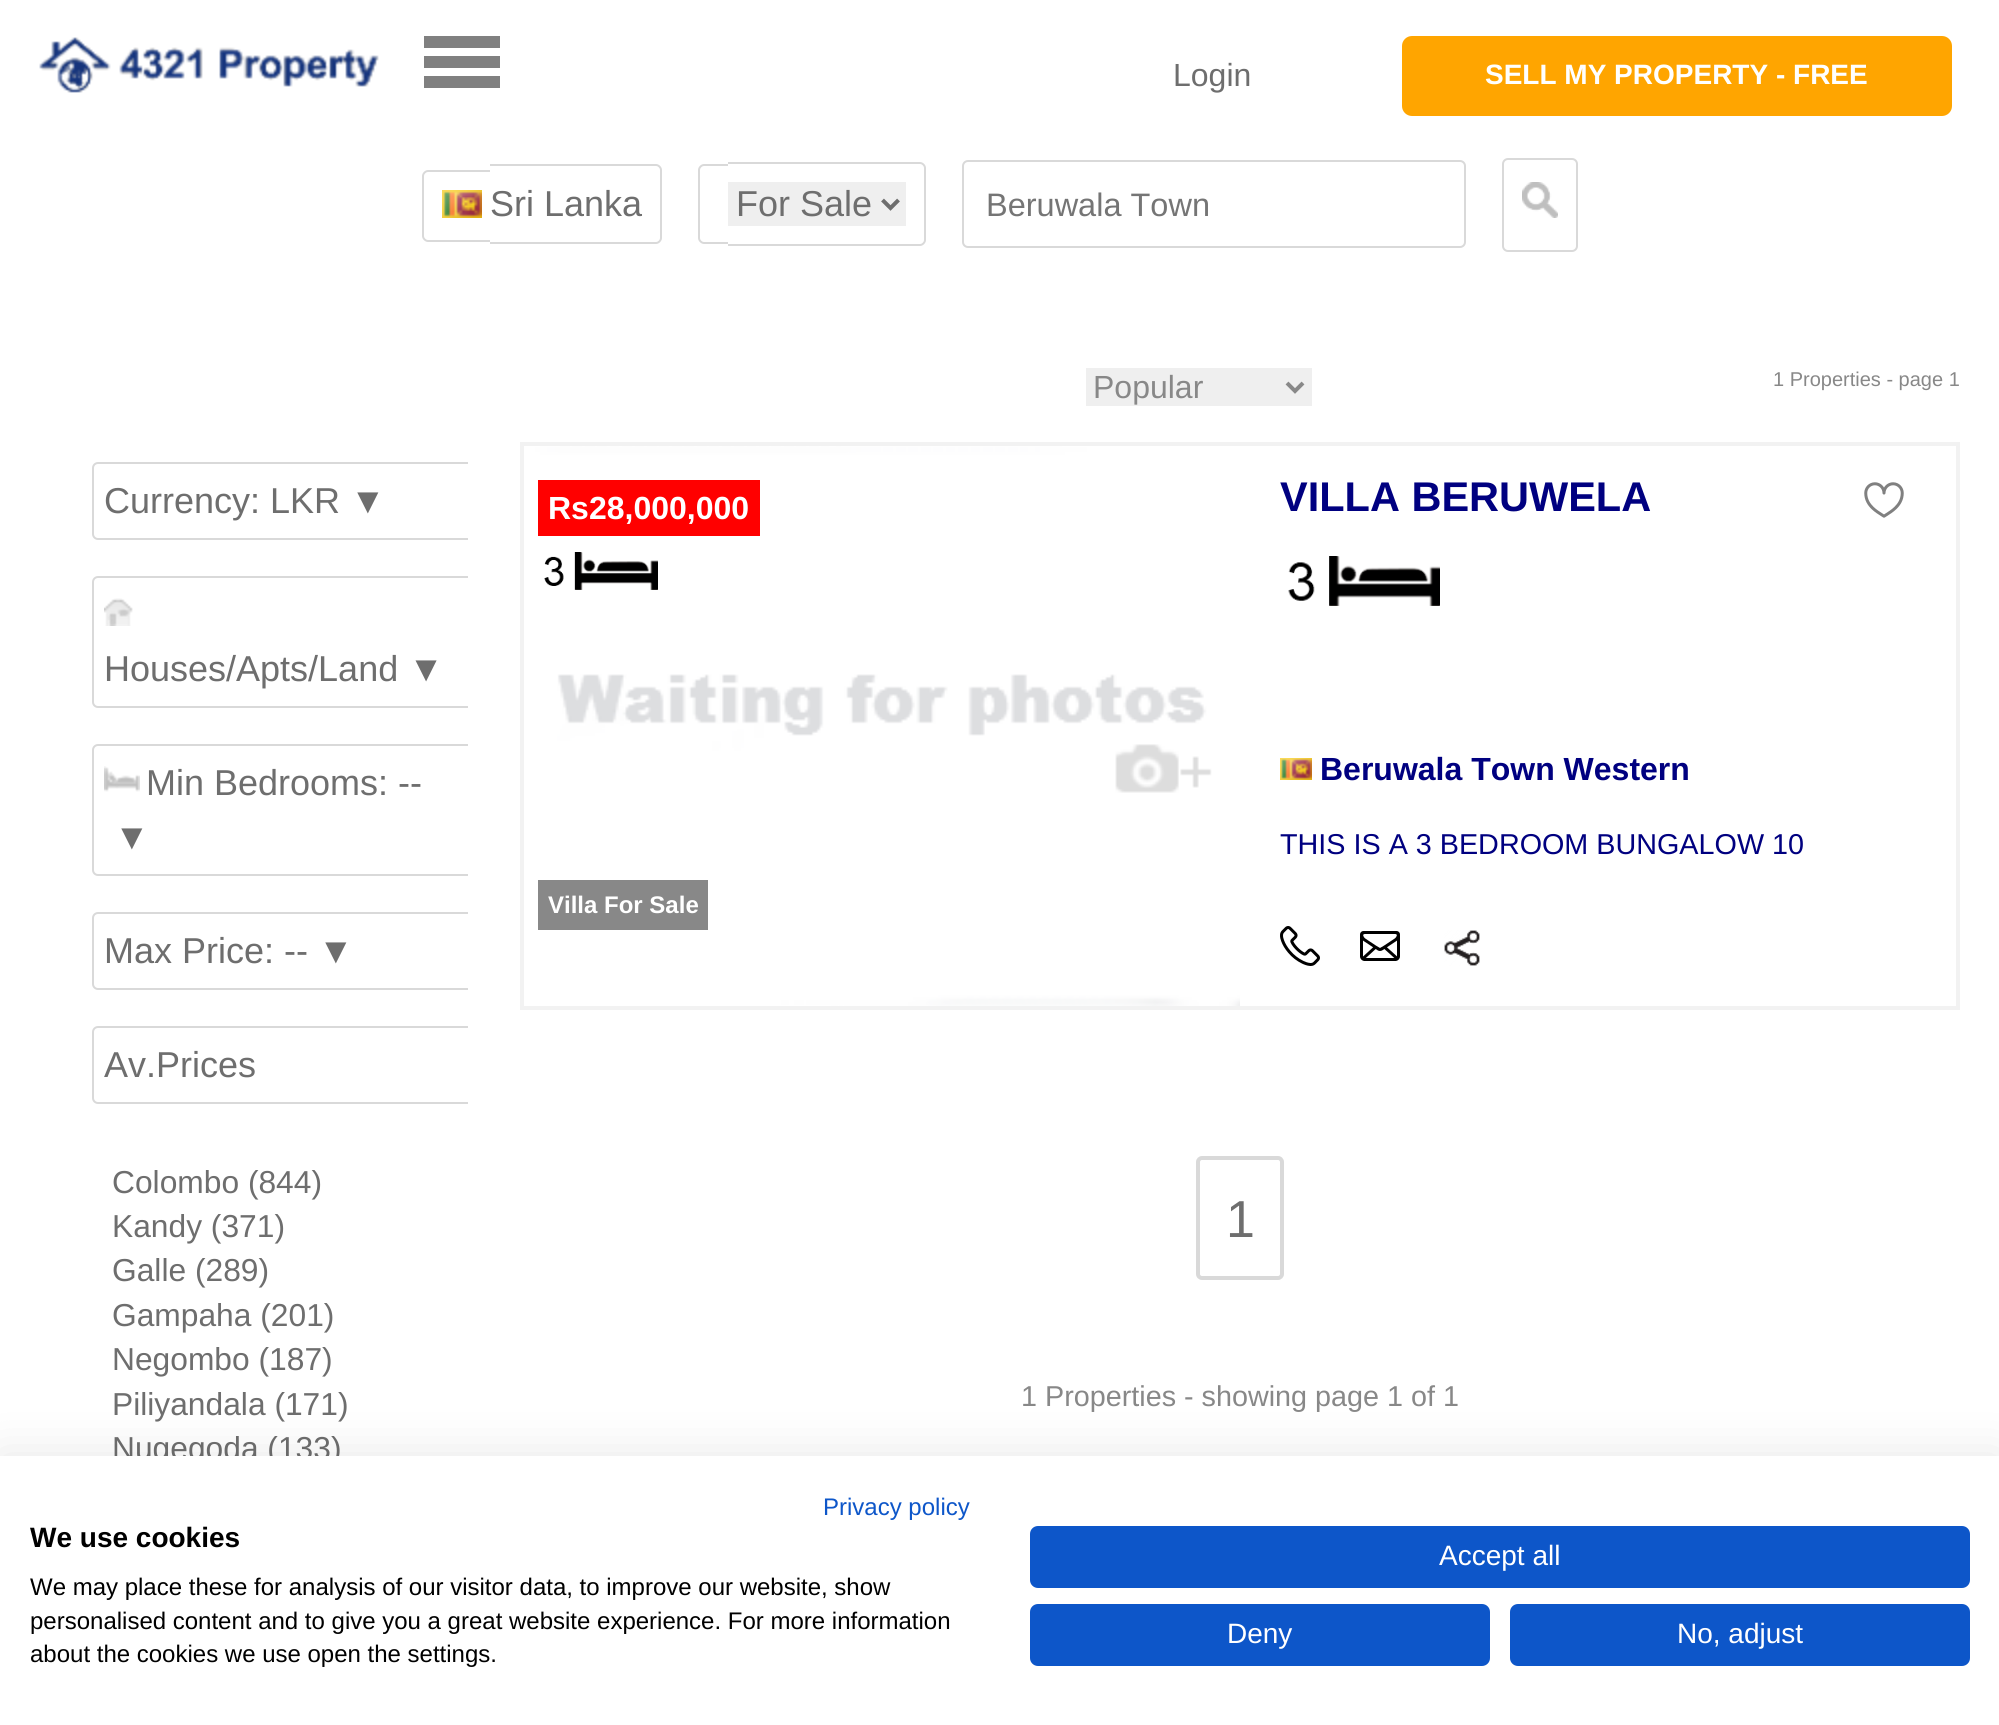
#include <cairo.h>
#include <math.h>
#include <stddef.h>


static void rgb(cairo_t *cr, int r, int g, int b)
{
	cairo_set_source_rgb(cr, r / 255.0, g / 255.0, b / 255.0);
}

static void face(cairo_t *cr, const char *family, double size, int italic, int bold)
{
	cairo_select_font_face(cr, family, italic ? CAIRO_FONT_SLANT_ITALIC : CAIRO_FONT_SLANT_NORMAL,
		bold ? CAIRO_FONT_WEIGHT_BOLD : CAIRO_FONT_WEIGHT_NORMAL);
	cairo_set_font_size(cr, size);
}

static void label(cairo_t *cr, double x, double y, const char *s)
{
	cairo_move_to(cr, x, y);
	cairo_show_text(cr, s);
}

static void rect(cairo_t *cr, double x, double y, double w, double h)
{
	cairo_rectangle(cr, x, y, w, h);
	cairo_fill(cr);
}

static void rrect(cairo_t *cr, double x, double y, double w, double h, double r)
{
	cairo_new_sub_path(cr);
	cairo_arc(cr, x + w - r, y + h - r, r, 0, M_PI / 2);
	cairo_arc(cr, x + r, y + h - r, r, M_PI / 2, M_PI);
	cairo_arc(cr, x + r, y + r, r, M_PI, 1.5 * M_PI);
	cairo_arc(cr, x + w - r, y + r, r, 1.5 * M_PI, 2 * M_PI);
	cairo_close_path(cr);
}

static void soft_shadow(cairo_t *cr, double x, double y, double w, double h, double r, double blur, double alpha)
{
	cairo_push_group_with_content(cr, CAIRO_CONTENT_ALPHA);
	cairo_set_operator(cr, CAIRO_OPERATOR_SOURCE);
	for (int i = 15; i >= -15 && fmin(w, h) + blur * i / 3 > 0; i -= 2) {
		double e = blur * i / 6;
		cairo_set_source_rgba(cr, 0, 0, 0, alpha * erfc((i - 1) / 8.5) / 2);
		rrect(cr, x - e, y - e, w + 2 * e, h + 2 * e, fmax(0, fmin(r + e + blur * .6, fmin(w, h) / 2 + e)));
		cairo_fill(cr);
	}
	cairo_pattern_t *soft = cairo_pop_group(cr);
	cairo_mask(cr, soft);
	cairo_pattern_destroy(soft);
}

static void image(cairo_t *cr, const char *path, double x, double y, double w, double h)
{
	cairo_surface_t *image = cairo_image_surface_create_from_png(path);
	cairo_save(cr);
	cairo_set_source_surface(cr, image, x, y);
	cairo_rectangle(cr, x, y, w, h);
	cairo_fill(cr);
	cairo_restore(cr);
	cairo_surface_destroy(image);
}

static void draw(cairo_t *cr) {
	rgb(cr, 255, 255, 255);
	cairo_paint(cr);
	image(cr, "image0.png", 39, 37, 340, 56);
	rgb(cr, 128, 128, 128);
	rect(cr, 424, 56, 76, 12);
	rect(cr, 424, 36, 76, 12);
	rect(cr, 424, 76, 76, 12);
	face(cr, "Liberation Sans", 32, 0, 0);
	rgb(cr, 110, 110, 110);
	label(cr, 1173, 86, "Login");
	rgb(cr, 255, 165, 0);
	rrect(cr, 1402, 36, 550, 80, 10);
	cairo_fill(cr);
	face(cr, "Liberation Sans", 28, 0, 1);
	rgb(cr, 255, 255, 255);
	label(cr, 1485, 84, "SELL MY PROPERTY - FREE");
	rgb(cr, 217, 217, 217);
	cairo_set_fill_rule(cr, CAIRO_FILL_RULE_EVEN_ODD);
	cairo_new_path(cr);
	cairo_move_to(cr, 428, 170);
	cairo_line_to(cr, 490, 170);
	cairo_line_to(cr, 490, 242);
	cairo_line_to(cr, 428, 242);
	cairo_curve_to(cr, 425, 242, 422, 239, 422, 236);
	cairo_line_to(cr, 422, 176);
	cairo_curve_to(cr, 422, 173, 425, 170, 428, 170);
	cairo_close_path(cr);
	cairo_move_to(cr, 428, 172);
	cairo_line_to(cr, 490, 172);
	cairo_line_to(cr, 490, 240);
	cairo_line_to(cr, 428, 240);
	cairo_curve_to(cr, 426, 240, 424, 238, 424, 236);
	cairo_line_to(cr, 424, 176);
	cairo_curve_to(cr, 424, 174, 426, 172, 428, 172);
	cairo_close_path(cr);
	cairo_fill(cr);
	image(cr, "image1.png", 442, 190, 40, 28);
	cairo_new_path(cr);
	cairo_move_to(cr, 490, 164);
	cairo_line_to(cr, 656, 164);
	cairo_curve_to(cr, 659, 164, 662, 167, 662, 170);
	cairo_line_to(cr, 662, 238);
	cairo_curve_to(cr, 662, 241, 659, 244, 656, 244);
	cairo_line_to(cr, 490, 244);
	cairo_close_path(cr);
	cairo_move_to(cr, 490, 166);
	cairo_line_to(cr, 656, 166);
	cairo_curve_to(cr, 658, 166, 660, 168, 660, 170);
	cairo_line_to(cr, 660, 238);
	cairo_curve_to(cr, 660, 240, 658, 242, 656, 242);
	cairo_line_to(cr, 490, 242);
	cairo_close_path(cr);
	cairo_fill(cr);
	face(cr, "Liberation Sans", 36, 0, 0);
	rgb(cr, 110, 110, 110);
	label(cr, 490, 216, "Sri Lanka");
	rgb(cr, 217, 217, 217);
	cairo_new_path(cr);
	cairo_move_to(cr, 704, 164);
	cairo_line_to(cr, 728, 164);
	cairo_line_to(cr, 728, 244);
	cairo_line_to(cr, 704, 244);
	cairo_curve_to(cr, 701, 244, 698, 241, 698, 238);
	cairo_line_to(cr, 698, 170);
	cairo_curve_to(cr, 698, 167, 701, 164, 704, 164);
	cairo_close_path(cr);
	cairo_move_to(cr, 704, 166);
	cairo_line_to(cr, 728, 166);
	cairo_line_to(cr, 728, 242);
	cairo_line_to(cr, 704, 242);
	cairo_curve_to(cr, 702, 242, 700, 240, 700, 238);
	cairo_line_to(cr, 700, 170);
	cairo_curve_to(cr, 700, 168, 702, 166, 704, 166);
	cairo_close_path(cr);
	cairo_fill(cr);
	cairo_new_path(cr);
	cairo_move_to(cr, 728, 162);
	cairo_line_to(cr, 920, 162);
	cairo_curve_to(cr, 923, 162, 926, 165, 926, 168);
	cairo_line_to(cr, 926, 240);
	cairo_curve_to(cr, 926, 243, 923, 246, 920, 246);
	cairo_line_to(cr, 728, 246);
	cairo_close_path(cr);
	cairo_move_to(cr, 728, 164);
	cairo_line_to(cr, 920, 164);
	cairo_curve_to(cr, 922, 164, 924, 166, 924, 168);
	cairo_line_to(cr, 924, 240);
	cairo_curve_to(cr, 924, 242, 922, 244, 920, 244);
	cairo_line_to(cr, 728, 244);
	cairo_close_path(cr);
	cairo_fill(cr);
	rgb(cr, 239, 239, 239);
	rect(cr, 728, 182, 178, 44);
	cairo_new_path(cr);
	cairo_move_to(cr, 882.5, 200);
	cairo_line_to(cr, 890.5, 208);
	cairo_line_to(cr, 898.5, 200);
	rgb(cr, 110, 110, 110);
	cairo_set_line_width(cr, 4);
	cairo_stroke(cr);
	label(cr, 736, 216, "For Sale");
	rrect(cr, 963, 161, 502, 86, 5);
	rgb(cr, 217, 217, 217);
	cairo_set_line_width(cr, 2);
	cairo_stroke(cr);
	face(cr, "Liberation Sans", 32.5, 0, 0);
	rgb(cr, 117, 117, 117);
	label(cr, 986, 216, "Beruwala Town");
	rrect(cr, 1503, 159, 74, 92, 5);
	rgb(cr, 217, 217, 217);
	cairo_stroke(cr);
	image(cr, "image2.png", 1522, 182, 36, 36);
	cairo_save(cr);
	cairo_set_fill_rule(cr, CAIRO_FILL_RULE_WINDING);
	cairo_rectangle(cr, 92, 462, 376, 678);
	cairo_clip(cr);
	rrect(cr, 93, 463, 380, 76, 5);
	cairo_stroke(cr);
	cairo_restore(cr);
	face(cr, "Liberation Sans", 36, 0, 0);
	rgb(cr, 110, 110, 110);
	label(cr, 104, 513, "Currency: LKR ▼");
	cairo_save(cr);
	cairo_set_fill_rule(cr, CAIRO_FILL_RULE_WINDING);
	cairo_rectangle(cr, 92, 462, 376, 678);
	cairo_clip(cr);
	rrect(cr, 93, 577, 380, 130, 5);
	rgb(cr, 217, 217, 217);
	cairo_stroke(cr);
	cairo_restore(cr);
	image(cr, "image3.png", 104, 598, 29, 28);
	label(cr, 104, 681, "Houses/Apts/Land ▼");
	cairo_save(cr);
	cairo_set_fill_rule(cr, CAIRO_FILL_RULE_WINDING);
	cairo_rectangle(cr, 92, 462, 376, 678);
	cairo_clip(cr);
	rrect(cr, 93, 745, 380, 130, 5);
	rgb(cr, 217, 217, 217);
	cairo_stroke(cr);
	cairo_restore(cr);
	image(cr, "image4.png", 104, 766, 36, 26);
	label(cr, 146, 795, "Min Bedrooms: --");
	label(cr, 114, 849, "▼");
	cairo_save(cr);
	cairo_set_fill_rule(cr, CAIRO_FILL_RULE_WINDING);
	cairo_rectangle(cr, 92, 462, 376, 678);
	cairo_clip(cr);
	rrect(cr, 93, 913, 380, 76, 5);
	rgb(cr, 217, 217, 217);
	cairo_stroke(cr);
	cairo_restore(cr);
	label(cr, 104, 963, "Max Price: -- ▼");
	cairo_save(cr);
	cairo_set_fill_rule(cr, CAIRO_FILL_RULE_WINDING);
	cairo_rectangle(cr, 92, 462, 376, 678);
	cairo_clip(cr);
	rrect(cr, 93, 1027, 380, 76, 5);
	rgb(cr, 217, 217, 217);
	cairo_stroke(cr);
	cairo_restore(cr);
	label(cr, 104, 1077, "Av.Prices");
	face(cr, "Liberation Sans", 31.75, 0, 0);
	label(cr, 112, 1193, "Colombo (844)");
	label(cr, 112, 1237, "Kandy (371)");
	label(cr, 112, 1281, "Galle (289)");
	label(cr, 112, 1326, "Gampaha (201)");
	label(cr, 112, 1370, "Negombo (187)");
	label(cr, 112, 1415, "Piliyandala (171)");
	label(cr, 112, 1459, "Nugegoda (133)");
	rgb(cr, 239, 239, 239);
	rect(cr, 1086, 368, 226, 38);
	cairo_new_path(cr);
	cairo_move_to(cr, 1287, 383);
	cairo_line_to(cr, 1295, 391);
	cairo_line_to(cr, 1303, 383);
	rgb(cr, 136, 136, 136);
	cairo_set_line_width(cr, 4);
	cairo_stroke(cr);
	face(cr, "Liberation Sans", 32, 0, 0);
	label(cr, 1093, 398, "Popular");
	face(cr, "Liberation Sans", 20, 0, 0);
	label(cr, 1773, 386, "1 Properties - page 1");
	cairo_rectangle(cr, 522, 444, 1436, 564);
	rgb(cr, 242, 242, 242);
	cairo_stroke(cr);
	image(cr, "image5.png", 524, 446, 716, 560);
	rgb(cr, 255, 0, 0);
	rect(cr, 538, 480, 222, 56);
	face(cr, "Liberation Sans", 32, 0, 1);
	rgb(cr, 255, 255, 255);
	label(cr, 548, 519, "Rs28,000,000");
	image(cr, "image6.png", 544, 552, 114, 38);
	rgb(cr, 136, 136, 136);
	rect(cr, 538, 880, 170, 50);
	face(cr, "Liberation Sans", 24, 0, 1);
	rgb(cr, 255, 255, 255);
	label(cr, 548, 913, "Villa For Sale");
	face(cr, "Liberation Sans", 41.5, 0, 1);
	rgb(cr, 0, 0, 128);
	label(cr, 1280, 511, "VILLA BERUWELA");
	image(cr, "image7.png", 1288, 556, 152, 50);
	image(cr, "image8.png", 1280, 758, 32, 22);
	face(cr, "Liberation Sans", 32, 0, 1);
	label(cr, 1320, 780, "Beruwala Town Western");
	face(cr, "Liberation Sans", 28.75, 0, 0);
	label(cr, 1280, 854, "THIS IS A 3 BEDROOM BUNGALOW 10");
	image(cr, "image9.png", 1280, 926, 40, 40);
	image(cr, "image10.png", 1360, 931, 40, 30);
	image(cr, "image11.png", 1444, 930, 36, 36);
	image(cr, "image12.png", 1864, 482, 40, 36);
	rrect(cr, 1198, 1158, 84, 120, 4);
	rgb(cr, 217, 217, 217);
	cairo_stroke(cr);
	face(cr, "Liberation Sans", 52, 0, 0);
	rgb(cr, 110, 110, 110);
	label(cr, 1226, 1237, "1");
	face(cr, "Liberation Sans", 28.75, 0, 0);
	rgb(cr, 136, 136, 136);
	label(cr, 1021, 1406, "1 Properties - showing page 1 of 1");
	rgb(cr, 0, 0, 0);
	soft_shadow(cr, 0, 1456, 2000, 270, 0, 24, 0.1);
	rgb(cr, 255, 255, 255);
	rect(cr, 0, 1456, 1999, 269);
	face(cr, "Liberation Sans", 24, 0, 0);
	rgb(cr, 13, 86, 201);
	label(cr, 823, 1515, "Privacy policy");
	face(cr, "Liberation Sans", 28, 0, 1);
	rgb(cr, 0, 0, 0);
	label(cr, 30, 1547, "We use cookies");
	face(cr, "Liberation Sans", 24, 0, 0);
	label(cr, 30, 1595, "We may place these for analysis of our visitor data, to improve our website, show");
	label(cr, 30, 1629, "personalised content and to give you a great website experience. For more information");
	label(cr, 30, 1662, "about the cookies we use open the settings.");
	rgb(cr, 13, 86, 201);
	rrect(cr, 1031, 1527, 938, 60, 7);
	cairo_fill_preserve(cr);
	cairo_set_line_width(cr, 2);
	cairo_stroke(cr);
	face(cr, "Liberation Sans", 28, 0, 0);
	rgb(cr, 255, 255, 255);
	label(cr, 1439, 1565, "Accept all");
	rgb(cr, 13, 86, 201);
	rrect(cr, 1031, 1605, 458, 60, 7);
	cairo_fill_preserve(cr);
	cairo_stroke(cr);
	rgb(cr, 255, 255, 255);
	label(cr, 1227, 1643, "Deny");
	rgb(cr, 13, 86, 201);
	rrect(cr, 1511, 1605, 458, 60, 7);
	cairo_fill_preserve(cr);
	cairo_stroke(cr);
	rgb(cr, 255, 255, 255);
	label(cr, 1677, 1643, "No, adjust");
}

int main(void) {
	cairo_surface_t *surface = cairo_image_surface_create(CAIRO_FORMAT_RGB24, 1999, 1725);
	cairo_t *cr = cairo_create(surface);
	cairo_font_options_t *options = cairo_font_options_create();
	cairo_font_options_set_hint_metrics(options, CAIRO_HINT_METRICS_OFF);
	cairo_font_options_set_hint_style(options, CAIRO_HINT_STYLE_NONE);
	cairo_set_font_options(cr, options);
	cairo_set_miter_limit(cr, 4);
	draw(cr);
	cairo_surface_write_to_png(surface, "render.png");
	cairo_font_options_destroy(options);
	cairo_destroy(cr);
	cairo_surface_destroy(surface);
	return 0;
}
